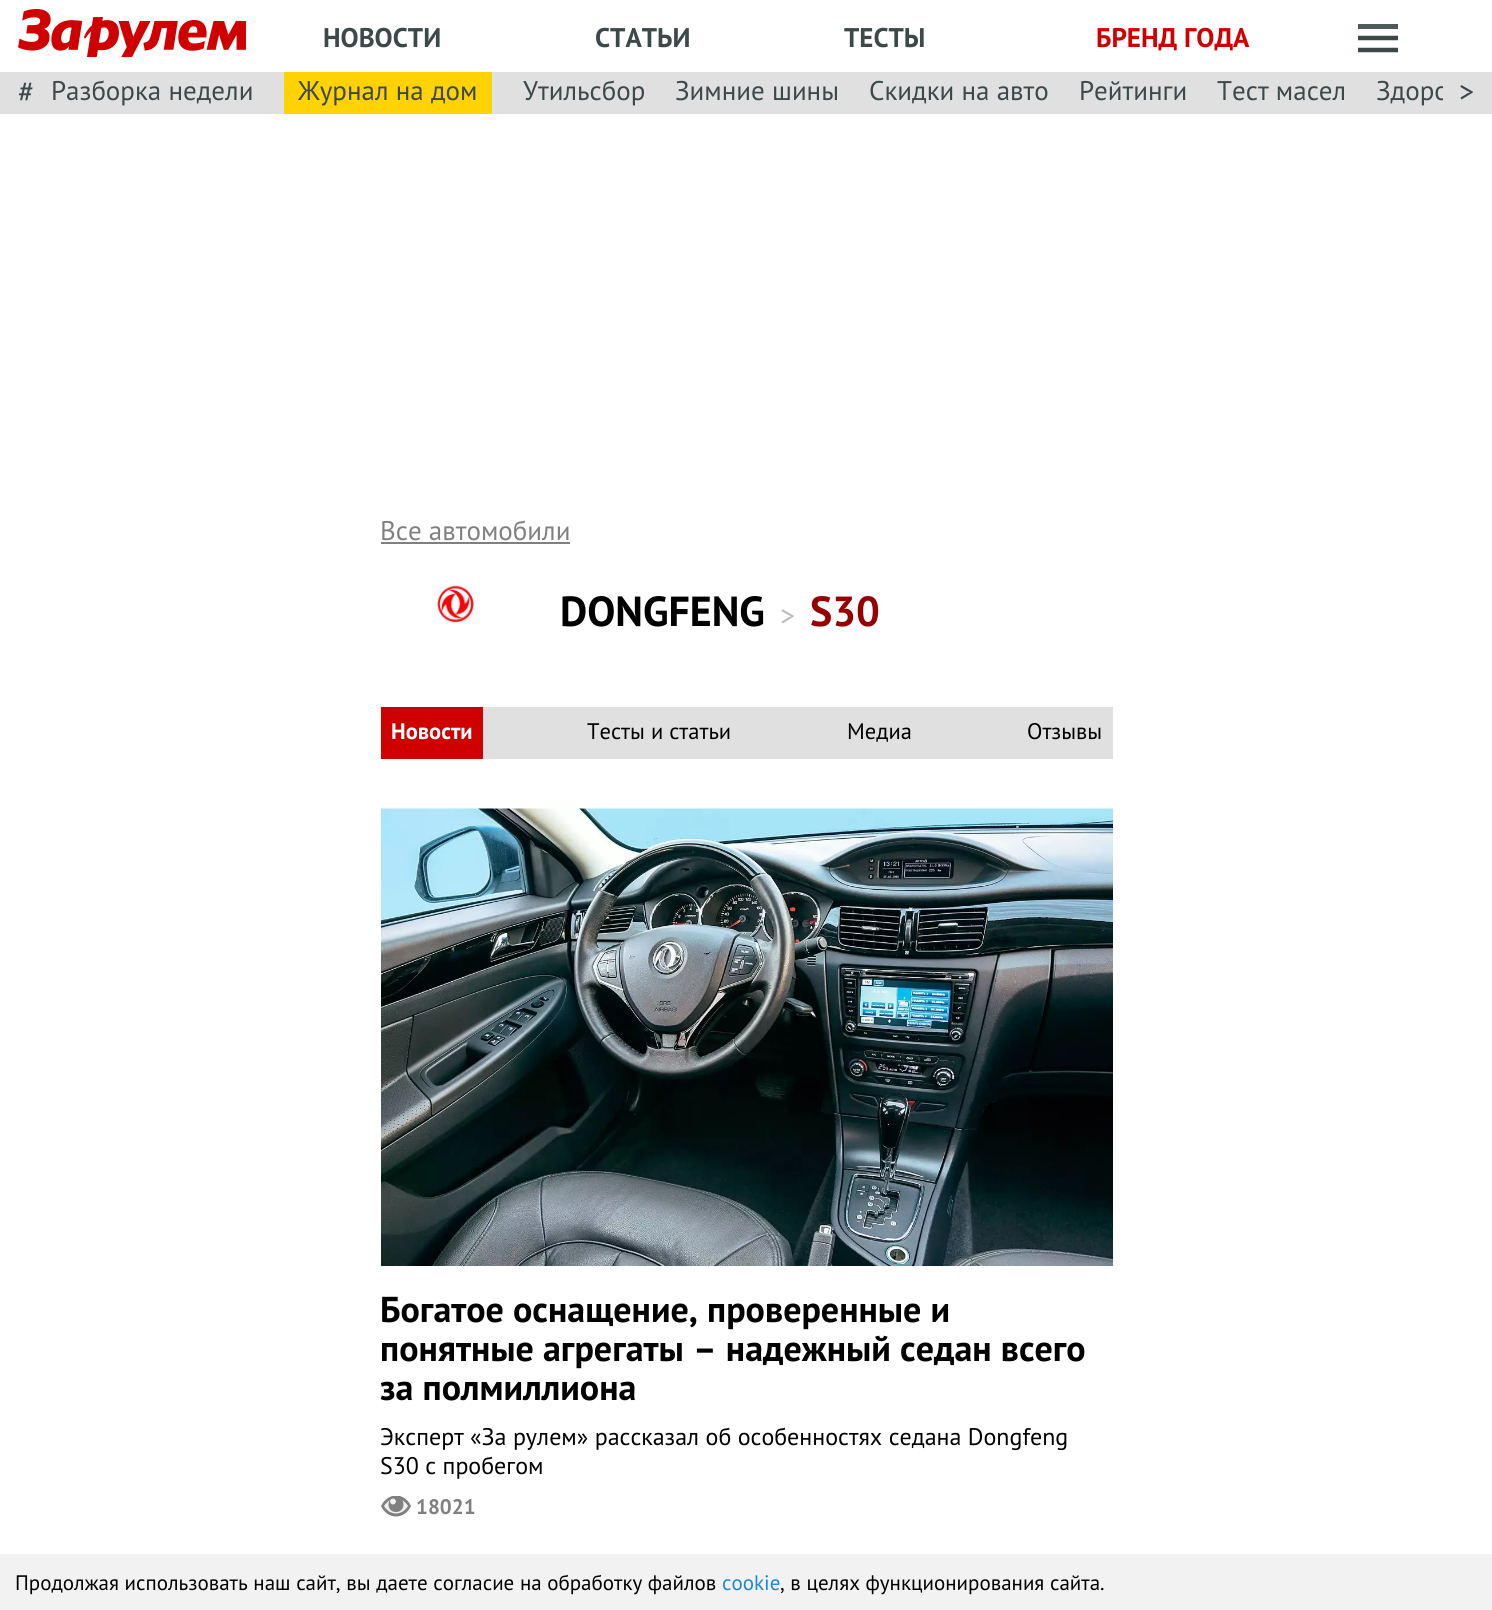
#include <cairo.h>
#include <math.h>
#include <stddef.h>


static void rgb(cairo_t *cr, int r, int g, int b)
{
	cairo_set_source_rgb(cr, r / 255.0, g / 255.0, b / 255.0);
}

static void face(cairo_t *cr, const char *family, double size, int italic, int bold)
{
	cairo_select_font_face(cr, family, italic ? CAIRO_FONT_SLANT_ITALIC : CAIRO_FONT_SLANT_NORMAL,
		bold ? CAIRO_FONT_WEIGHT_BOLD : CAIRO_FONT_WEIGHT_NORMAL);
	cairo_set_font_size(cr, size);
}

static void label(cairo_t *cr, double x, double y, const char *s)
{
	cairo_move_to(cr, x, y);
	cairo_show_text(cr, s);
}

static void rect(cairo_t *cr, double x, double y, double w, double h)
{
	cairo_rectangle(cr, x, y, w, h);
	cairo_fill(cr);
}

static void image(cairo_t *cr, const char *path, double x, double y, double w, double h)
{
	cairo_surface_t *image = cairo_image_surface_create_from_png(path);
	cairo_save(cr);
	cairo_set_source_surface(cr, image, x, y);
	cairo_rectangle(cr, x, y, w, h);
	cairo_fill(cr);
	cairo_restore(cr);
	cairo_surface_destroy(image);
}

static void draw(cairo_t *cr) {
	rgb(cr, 255, 255, 255);
	cairo_paint(cr);
	image(cr, "image0.png", 18, 9, 228, 48);
	face(cr, "PT Sans", 27, 0, 1);
	rgb(cr, 61, 72, 74);
	label(cr, 323, 47, "НОВОСТИ");
	label(cr, 595, 47, "СТАТЬИ");
	label(cr, 844, 47, "ТЕСТЫ");
	rgb(cr, 206, 0, 0);
	label(cr, 1096, 47, "БРЕНД ГОДА");
	rgb(cr, 80, 90, 92);
	rect(cr, 1358, 24, 40, 5);
	cairo_save(cr);
	cairo_rectangle(cr, 1358, 24, 40, 29);
	cairo_clip(cr);
	cairo_new_path(cr);
	cairo_move_to(cr, 1357.5, 38);
	cairo_line_to(cr, 1398, 38);
	cairo_move_to(cr, 1357.5, 50);
	cairo_line_to(cr, 1398, 50);
	rgb(cr, 61, 72, 74);
	cairo_set_line_width(cr, 4.5);
	cairo_stroke(cr);
	cairo_restore(cr);
	rgb(cr, 224, 224, 224);
	rect(cr, 0, 72, 1492, 42);
	face(cr, "PT Sans", 30, 0, 0);
	rgb(cr, 61, 72, 74);
	label(cr, 18, 102, "#");
	face(cr, "PT Sans", 27, 0, 0);
	label(cr, 51, 100, "Разборка недели");
	rgb(cr, 255, 210, 3);
	rect(cr, 284, 72, 208, 42);
	rgb(cr, 61, 72, 74);
	label(cr, 298, 100, "Журнал на дом");
	label(cr, 523, 100, "Утильсбор");
	label(cr, 675, 100, "Зимние шины");
	label(cr, 869, 100, "Скидки на авто");
	label(cr, 1079, 100, "Рейтинги");
	label(cr, 1217, 100, "Тест масел");
	cairo_save(cr);
	cairo_rectangle(cr, 51, 69, 1392, 45);
	cairo_clip(cr);
	label(cr, 1376, 100, "Здоро");
	cairo_restore(cr);
	face(cr, "PT Sans", 30, 0, 0);
	label(cr, 1459, 102, ">");
	face(cr, "PT Sans", 27, 0, 0);
	rgb(cr, 128, 128, 128);
	label(cr, 380, 540, "Все автомобили");
	rect(cr, 381, 542, 189, 2);
	image(cr, "image1.png", 434, 585, 41, 38);
	face(cr, "PT Sans", 42, 0, 1);
	rgb(cr, 0, 0, 0);
	label(cr, 560, 626, "DONGFENG");
	face(cr, "PT Sans", 30, 0, 0);
	rgb(cr, 189, 189, 189);
	label(cr, 780, 626, ">");
	face(cr, "PT Sans", 42, 0, 1);
	rgb(cr, 151, 0, 0);
	label(cr, 810, 626, "S30");
	rgb(cr, 224, 224, 224);
	rect(cr, 483, 707, 630, 52);
	rgb(cr, 206, 0, 0);
	rect(cr, 381, 707, 102, 52);
	face(cr, "PT Sans", 22.5, 0, 1);
	rgb(cr, 255, 255, 255);
	label(cr, 391, 739, "Новости");
	face(cr, "PT Sans", 22.5, 0, 0);
	rgb(cr, 0, 0, 0);
	label(cr, 587, 739, "Тесты и статьи");
	label(cr, 847, 739, "Медиа");
	label(cr, 1027, 739, "Отзывы");
	image(cr, "image2.png", 381, 808, 732, 458);
	face(cr, "PT Sans", 36, 0, 1);
	label(cr, 380, 1322, "Богатое оснащение, проверенные и");
	label(cr, 380, 1361, "понятные агрегаты – надежный седан всего");
	label(cr, 380, 1400, "за полмиллиона");
	face(cr, "PT Sans", 24, 0, 0);
	label(cr, 380, 1445, "Эксперт «За рулем» рассказал об особенностях седана Dongfeng");
	label(cr, 380, 1474, "S30 с пробегом");
	image(cr, "image3.png", 381, 1496, 30, 21);
	face(cr, "PT Sans", 21, 0, 1);
	rgb(cr, 128, 128, 128);
	label(cr, 416, 1514, "18021");
	rgb(cr, 242, 242, 242);
	rect(cr, 0, 1554, 1492, 56);
	face(cr, "PT Sans", 21, 0, 0);
	rgb(cr, 0, 0, 0);
	label(cr, 15, 1590, "Продолжая использовать наш сайт, вы даете согласие на обработку файлов");
	rgb(cr, 28, 136, 212);
	label(cr, 722, 1590, "cookie");
	rgb(cr, 0, 0, 0);
	label(cr, 780, 1590, ", в целях функционирования сайта.");
}

int main(void) {
	cairo_surface_t *surface = cairo_image_surface_create(CAIRO_FORMAT_RGB24, 1492, 1610);
	cairo_t *cr = cairo_create(surface);
	cairo_font_options_t *options = cairo_font_options_create();
	cairo_font_options_set_hint_metrics(options, CAIRO_HINT_METRICS_OFF);
	cairo_font_options_set_hint_style(options, CAIRO_HINT_STYLE_NONE);
	cairo_set_font_options(cr, options);
	cairo_set_miter_limit(cr, 4);
	draw(cr);
	cairo_surface_write_to_png(surface, "render.png");
	cairo_font_options_destroy(options);
	cairo_destroy(cr);
	cairo_surface_destroy(surface);
	return 0;
}
